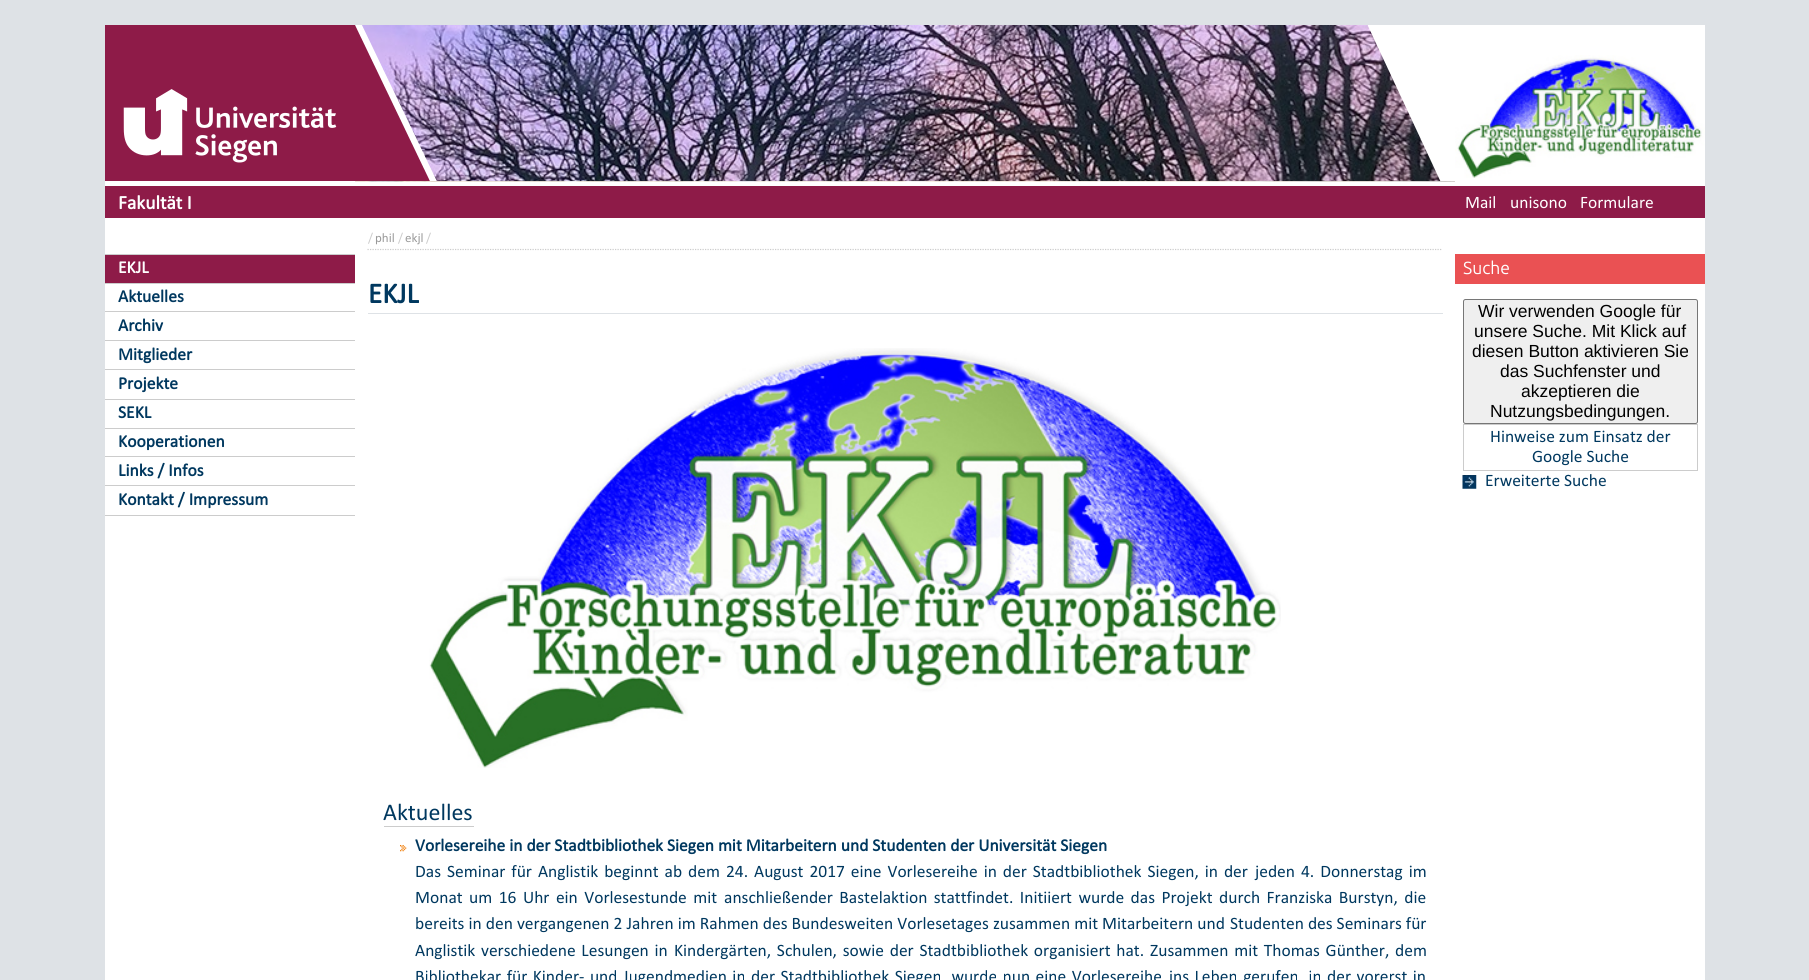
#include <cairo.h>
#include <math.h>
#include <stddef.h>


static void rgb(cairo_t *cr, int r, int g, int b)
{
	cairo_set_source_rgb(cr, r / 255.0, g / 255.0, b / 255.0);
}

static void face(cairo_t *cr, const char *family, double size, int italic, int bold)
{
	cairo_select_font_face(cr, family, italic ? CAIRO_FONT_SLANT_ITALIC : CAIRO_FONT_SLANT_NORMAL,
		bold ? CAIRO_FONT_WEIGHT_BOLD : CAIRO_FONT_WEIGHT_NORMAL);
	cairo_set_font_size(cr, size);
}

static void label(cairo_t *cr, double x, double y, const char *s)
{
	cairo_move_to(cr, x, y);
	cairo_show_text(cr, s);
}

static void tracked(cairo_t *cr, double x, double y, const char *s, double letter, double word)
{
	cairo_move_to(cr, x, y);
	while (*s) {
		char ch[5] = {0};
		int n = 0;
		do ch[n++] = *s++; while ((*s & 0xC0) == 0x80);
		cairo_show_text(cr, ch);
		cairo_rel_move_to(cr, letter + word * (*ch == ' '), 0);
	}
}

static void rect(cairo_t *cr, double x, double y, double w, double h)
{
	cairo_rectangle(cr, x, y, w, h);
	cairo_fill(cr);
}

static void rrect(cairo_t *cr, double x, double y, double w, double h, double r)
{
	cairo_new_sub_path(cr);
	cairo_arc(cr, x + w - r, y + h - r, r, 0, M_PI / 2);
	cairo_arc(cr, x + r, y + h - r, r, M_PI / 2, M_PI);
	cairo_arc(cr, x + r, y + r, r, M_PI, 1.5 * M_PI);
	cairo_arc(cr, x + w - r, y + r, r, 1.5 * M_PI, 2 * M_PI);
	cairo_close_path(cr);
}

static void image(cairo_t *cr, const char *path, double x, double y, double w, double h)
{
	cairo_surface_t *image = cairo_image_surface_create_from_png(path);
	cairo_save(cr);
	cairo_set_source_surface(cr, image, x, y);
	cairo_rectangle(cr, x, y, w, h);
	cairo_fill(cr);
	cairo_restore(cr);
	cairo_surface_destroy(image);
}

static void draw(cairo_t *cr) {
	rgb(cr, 222, 226, 230);
	cairo_paint(cr);
	rgb(cr, 255, 255, 255);
	rect(cr, 105, 25, 1600, 955);
	rgb(cr, 142, 27, 72);
	rect(cr, 105, 25, 250, 156);
	image(cr, "image0.png", 123, 89, 214, 74);
	rect(cr, 105, 186, 250, 32);
	face(cr, "Calibri", 19.5, 0, 1);
	rgb(cr, 255, 255, 255);
	label(cr, 118, 209, "Fakultät I");
	rgb(cr, 204, 204, 204);
	rect(cr, 105, 515, 250, 1);
	rect(cr, 105, 254, 250, 1);
	rgb(cr, 142, 27, 72);
	rect(cr, 105, 255, 250, 28);
	face(cr, "Calibri", 17.5, 0, 1);
	rgb(cr, 255, 255, 255);
	label(cr, 118, 273, "EKJL");
	rgb(cr, 204, 204, 204);
	rect(cr, 105, 283, 250, 1);
	face(cr, "Calibri", 17.6, 0, 1);
	rgb(cr, 0, 56, 95);
	label(cr, 118, 302, "Aktuelles");
	rgb(cr, 204, 204, 204);
	rect(cr, 105, 311, 250, 1);
	rgb(cr, 0, 56, 95);
	label(cr, 118, 331, "Archiv");
	rgb(cr, 204, 204, 204);
	rect(cr, 105, 340, 250, 1);
	rgb(cr, 0, 56, 95);
	label(cr, 118, 360, "Mitglieder");
	rgb(cr, 204, 204, 204);
	rect(cr, 105, 369, 250, 1);
	rgb(cr, 0, 56, 95);
	label(cr, 118, 389, "Projekte");
	rgb(cr, 204, 204, 204);
	rect(cr, 105, 399, 250, 1);
	rgb(cr, 0, 56, 95);
	label(cr, 118, 418, "SEKL");
	rgb(cr, 204, 204, 204);
	rect(cr, 105, 428, 250, 1);
	rgb(cr, 0, 56, 95);
	label(cr, 118, 447, "Kooperationen");
	rgb(cr, 204, 204, 204);
	rect(cr, 105, 456, 250, 1);
	rgb(cr, 0, 56, 95);
	label(cr, 118, 476, "Links / Infos");
	rgb(cr, 204, 204, 204);
	rect(cr, 105, 485, 250, 1);
	rgb(cr, 0, 56, 95);
	label(cr, 118, 505, "Kontakt / Impressum");
	image(cr, "image1.png", 355, 181, 1100, 1);
	image(cr, "image2.png", 355, 25, 1100, 157);
	image(cr, "image3.png", 355, 25, 82, 156);
	image(cr, "image4.png", 1368, 25, 87, 156);
	cairo_new_path(cr);
	cairo_move_to(cr, 367.5, 249.5);
	cairo_line_to(cr, 1442.5, 249.5);
	rgb(cr, 204, 204, 204);
	cairo_set_line_width(cr, 1.2);
	cairo_set_dash(cr, (double[]){1.25, 1.25}, 2, 0);
	cairo_stroke(cr);
	face(cr, "Calibri", 13, 0, 0);
	label(cr, 368, 242, "/");
	rgb(cr, 153, 153, 153);
	label(cr, 375, 242, "phil");
	rgb(cr, 204, 204, 204);
	label(cr, 398, 242, "/");
	rgb(cr, 153, 153, 153);
	label(cr, 405, 242, "ekjl");
	rgb(cr, 204, 204, 204);
	label(cr, 426, 242, "/");
	rgb(cr, 222, 226, 230);
	rect(cr, 368, 313, 1075, 1);
	face(cr, "Calibri", 29, 0, 1);
	rgb(cr, 0, 56, 95);
	label(cr, 368, 303, "EKJL");
	image(cr, "image5.png", 429, 348, 852, 420);
	face(cr, "Calibri", 24, 0, 0);
	label(cr, 383, 820, "Aktuelles");
	rgb(cr, 204, 204, 204);
	rect(cr, 384, 826, 90, 1);
	image(cr, "image6.png", 400, 845, 7, 7);
	face(cr, "Calibri", 17.5, 0, 1);
	rgb(cr, 0, 56, 95);
	label(cr, 415, 851, "Vorlesereihe in der Stadtbibliothek Siegen mit Mitarbeitern und Studenten der Universität Siegen");
	face(cr, "Calibri", 17.5, 0, 0);
	tracked(cr, 415, 877, "Das Seminar für Anglistik beginnt ab dem 24. August 2017 eine Vorlesereihe in der Stadtbibliothek Siegen, in der", 0, 2);
	tracked(cr, 1255, 877, "jeden 4. Donnerstag im", 0, 2);
	tracked(cr, 415, 903, "Monat um 16 Uhr ein Vorlesestunde mit", 0, 2.5);
	tracked(cr, 724, 903, "anschließender Bastelaktion stattfindet. Initiiert wurde das Projekt", 0, 2.5);
	tracked(cr, 1219, 903, "durch Franziska Burstyn, die", 0, 2.5);
	tracked(cr, 415, 929, "bereits in den vergangenen 2 Jahren im Rahmen des Bundesweiten Vorlesetages zusammen mit Mitarbeitern und", 0, 0.1);
	label(cr, 1230, 929, "Studenten des Seminars für");
	tracked(cr, 415, 956, "Anglistik verschiedene Lesungen in", 0, 1.75);
	tracked(cr, 674, 956, "Kindergärten, Schulen, sowie der Stadtbibliothek organisiert hat.", 0, 1.75);
	tracked(cr, 1150, 956, "Zusammen mit Thomas Günther, dem", 0, 1.75);
	tracked(cr, 415, 982, "Bibliothekar für Kinder- und", 0, 1.5);
	tracked(cr, 623, 982, "Jugendmedien in der Stadtbibliothek Siegen, wurde nun eine Vorlesereihe", 0, 1.5);
	tracked(cr, 1169, 982, "ins Leben gerufen, in der vorerst in", 0, 1.5);
	image(cr, "image7.png", 1455, 55, 250, 123);
	rgb(cr, 142, 27, 72);
	rect(cr, 355, 186, 1350, 32);
	rgb(cr, 255, 255, 255);
	label(cr, 1465, 208, "Mail");
	label(cr, 1510, 208, "unisono");
	label(cr, 1580, 208, "Formulare");
	rgb(cr, 234, 81, 83);
	rect(cr, 1455, 254, 250, 30);
	face(cr, "Ubuntu", 17.5, 0, 0);
	rgb(cr, 255, 255, 255);
	label(cr, 1463, 274, "Suche");
	rgb(cr, 239, 239, 239);
	rrect(cr, 1463.5, 299.5, 234, 124, 2);
	cairo_fill_preserve(cr);
	rgb(cr, 118, 118, 118);
	cairo_set_line_width(cr, 1);
	cairo_set_dash(cr, NULL, 0, 0);
	cairo_stroke(cr);
	face(cr, "Liberation Sans", 17.5, 0, 0);
	rgb(cr, 0, 0, 0);
	label(cr, 1478, 317, "Wir verwenden Google für");
	label(cr, 1474, 337, "unsere Suche. Mit Klick auf");
	label(cr, 1472, 357, "diesen Button aktivieren Sie");
	label(cr, 1500, 377, "das Suchfenster und");
	label(cr, 1521, 397, "akzeptieren die");
	label(cr, 1490, 417, "Nutzungsbedingungen.");
	cairo_rectangle(cr, 1463.5, 424.5, 234, 46);
	rgb(cr, 204, 204, 204);
	cairo_stroke(cr);
	face(cr, "Calibri", 17.5, 0, 0);
	rgb(cr, 0, 56, 95);
	label(cr, 1490, 442, "Hinweise zum Einsatz der");
	label(cr, 1532, 462, "Google Suche");
	image(cr, "image8.png", 1462, 475, 15, 14);
	label(cr, 1485, 486, "Erweiterte Suche");
}

int main(void) {
	cairo_surface_t *surface = cairo_image_surface_create(CAIRO_FORMAT_RGB24, 1809, 980);
	cairo_t *cr = cairo_create(surface);
	cairo_font_options_t *options = cairo_font_options_create();
	cairo_font_options_set_hint_metrics(options, CAIRO_HINT_METRICS_OFF);
	cairo_font_options_set_hint_style(options, CAIRO_HINT_STYLE_NONE);
	cairo_set_font_options(cr, options);
	cairo_set_miter_limit(cr, 4);
	draw(cr);
	cairo_surface_write_to_png(surface, "render.png");
	cairo_font_options_destroy(options);
	cairo_destroy(cr);
	cairo_surface_destroy(surface);
	return 0;
}
